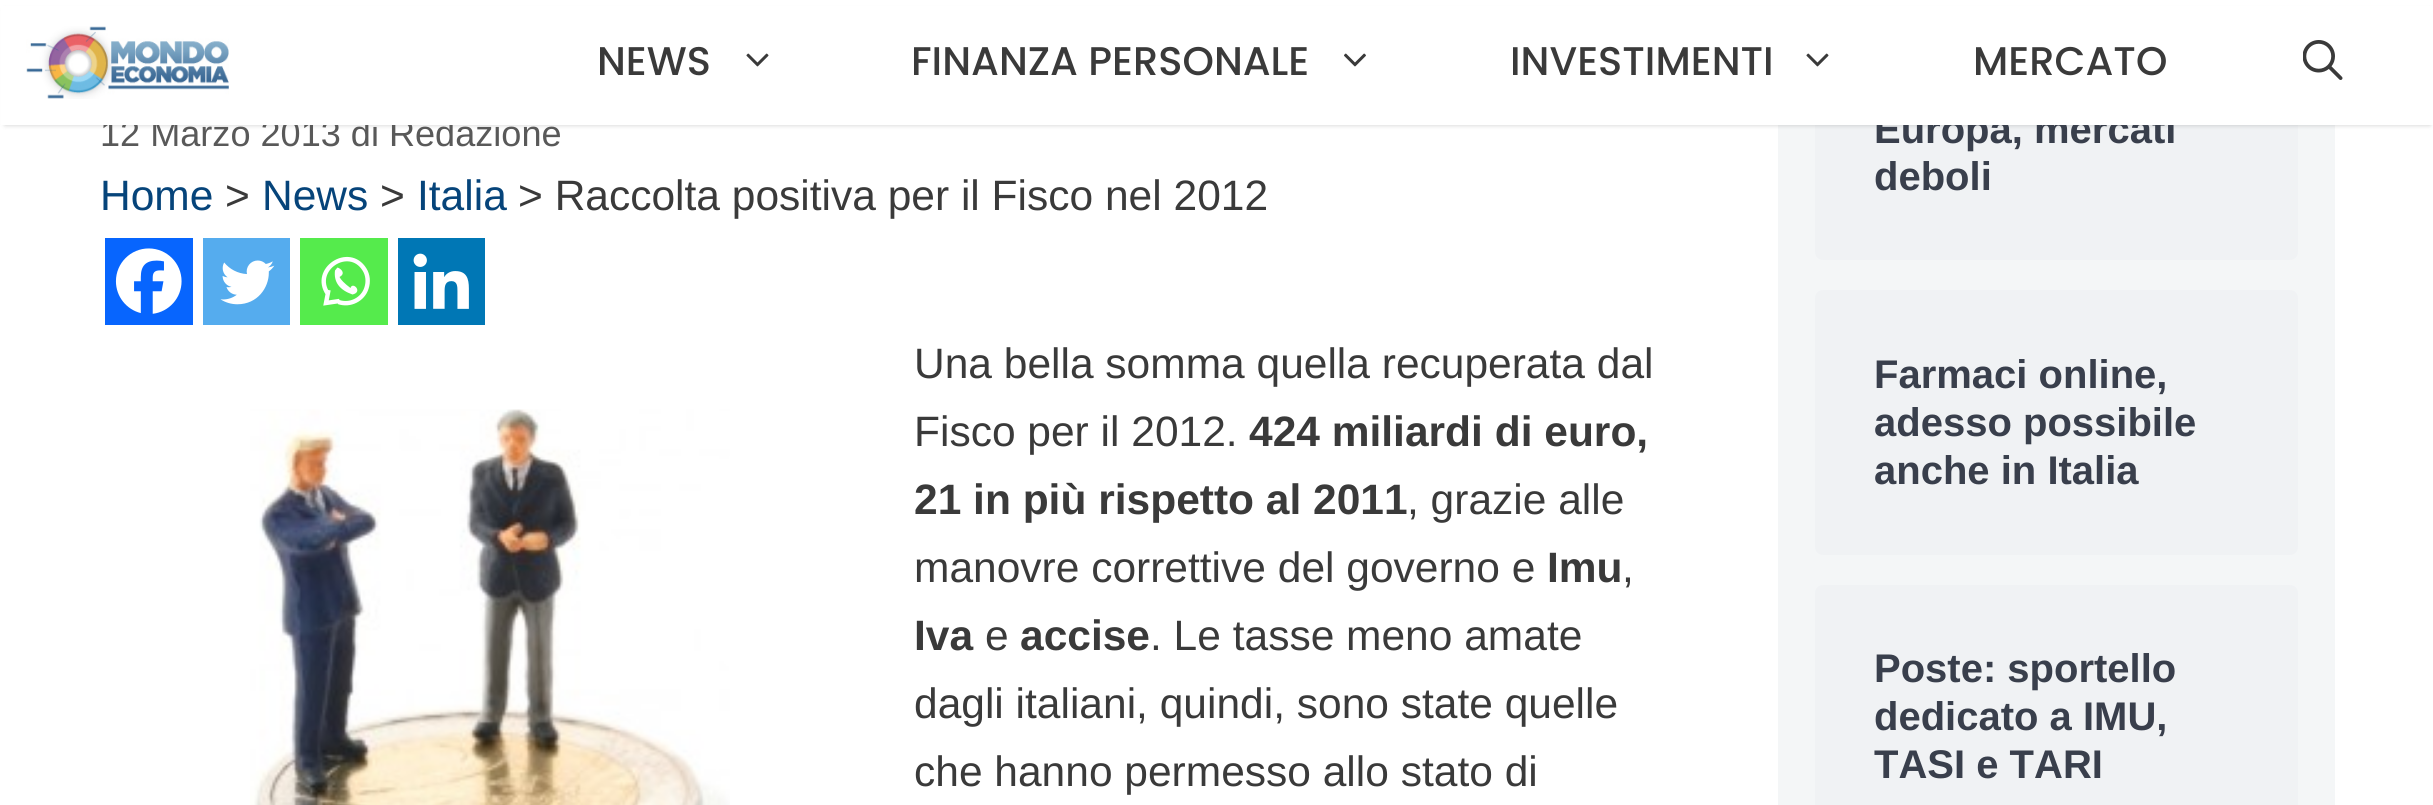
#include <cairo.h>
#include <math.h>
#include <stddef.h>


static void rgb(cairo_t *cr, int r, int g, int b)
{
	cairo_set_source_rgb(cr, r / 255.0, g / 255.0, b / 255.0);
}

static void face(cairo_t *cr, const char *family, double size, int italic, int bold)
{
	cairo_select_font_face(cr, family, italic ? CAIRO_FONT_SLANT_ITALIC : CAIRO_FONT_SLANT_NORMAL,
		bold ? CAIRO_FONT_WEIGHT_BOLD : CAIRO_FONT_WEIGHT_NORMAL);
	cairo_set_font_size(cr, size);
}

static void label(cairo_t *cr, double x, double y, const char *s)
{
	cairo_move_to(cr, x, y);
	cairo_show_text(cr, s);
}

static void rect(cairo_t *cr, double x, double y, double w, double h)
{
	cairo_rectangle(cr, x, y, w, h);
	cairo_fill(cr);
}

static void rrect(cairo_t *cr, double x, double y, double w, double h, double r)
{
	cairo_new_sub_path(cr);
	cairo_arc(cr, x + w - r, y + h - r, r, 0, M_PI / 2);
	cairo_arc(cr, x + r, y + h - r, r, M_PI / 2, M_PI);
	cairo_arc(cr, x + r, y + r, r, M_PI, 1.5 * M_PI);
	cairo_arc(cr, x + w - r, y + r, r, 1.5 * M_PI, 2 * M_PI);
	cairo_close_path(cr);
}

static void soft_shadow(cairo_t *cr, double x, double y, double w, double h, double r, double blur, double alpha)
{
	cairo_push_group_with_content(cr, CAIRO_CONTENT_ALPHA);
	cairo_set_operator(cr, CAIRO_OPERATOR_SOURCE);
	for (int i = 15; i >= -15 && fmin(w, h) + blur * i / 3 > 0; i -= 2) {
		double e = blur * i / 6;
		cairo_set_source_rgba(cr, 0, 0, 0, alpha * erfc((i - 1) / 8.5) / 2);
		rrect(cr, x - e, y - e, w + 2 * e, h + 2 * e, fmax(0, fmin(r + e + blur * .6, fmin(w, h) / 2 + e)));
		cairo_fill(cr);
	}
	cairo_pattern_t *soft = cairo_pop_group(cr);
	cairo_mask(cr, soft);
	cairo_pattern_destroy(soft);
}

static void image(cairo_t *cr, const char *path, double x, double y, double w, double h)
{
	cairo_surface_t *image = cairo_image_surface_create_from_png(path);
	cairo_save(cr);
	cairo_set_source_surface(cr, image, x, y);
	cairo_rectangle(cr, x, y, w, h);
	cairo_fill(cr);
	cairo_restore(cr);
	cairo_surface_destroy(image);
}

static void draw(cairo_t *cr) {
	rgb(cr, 255, 255, 255);
	cairo_paint(cr);
	rgb(cr, 244, 246, 247);
	rect(cr, 1778, 125, 557, 680);
	rgb(cr, 240, 242, 244);
	rrect(cr, 1815, 45, 483, 215, 8);
	cairo_fill(cr);
	rgb(cr, 0, 0, 0);
	soft_shadow(cr, 5, 10, 2425, 115, 0, 2.5, 0.2);
	face(cr, "Liberation Sans", 36.1, 0, 0);
	rgb(cr, 89, 89, 89);
	label(cr, 100, 146, "12 Marzo 2013 di Redazione");
	face(cr, "Liberation Sans", 40, 0, 1);
	rgb(cr, 57, 63, 76);
	label(cr, 1874, 143, "Europa, mercati");
	rgb(cr, 255, 255, 255);
	rect(cr, 1, 6, 2432, 119);
	image(cr, "image0.png", 26, 26, 203, 73);
	face(cr, "Poppins Medium", 40, 0, 0);
	rgb(cr, 58, 58, 58);
	label(cr, 597, 75, "NEWS");
	image(cr, "image1.png", 746, 53, 23, 14);
	label(cr, 911, 75, "FINANZA PERSONALE");
	image(cr, "image2.png", 1344, 53, 22, 14);
	label(cr, 1510, 75, "INVESTIMENTI");
	image(cr, "image1.png", 1806, 53, 23, 14);
	label(cr, 1973, 75, "MERCATO");
	image(cr, "image3.png", 2303, 40, 40, 40);
	face(cr, "Liberation Sans", 42.5, 0, 0);
	rgb(cr, 6, 68, 122);
	label(cr, 100, 210, "Home");
	rgb(cr, 58, 58, 58);
	label(cr, 225, 210, ">");
	rgb(cr, 6, 68, 122);
	label(cr, 262, 210, "News");
	rgb(cr, 58, 58, 58);
	label(cr, 380, 210, ">");
	rgb(cr, 6, 68, 122);
	label(cr, 417, 210, "Italia");
	rgb(cr, 58, 58, 58);
	label(cr, 518, 210, "> Raccolta positiva per il Fisco nel 2012");
	rgb(cr, 7, 101, 254);
	rect(cr, 105, 238, 88, 87);
	image(cr, "image4.png", 115, 248, 67, 66);
	rgb(cr, 85, 172, 238);
	rect(cr, 203, 238, 87, 87);
	image(cr, "image5.png", 220, 260, 55, 45);
	rgb(cr, 85, 235, 76);
	rect(cr, 300, 238, 88, 87);
	cairo_new_path(cr);
	cairo_move_to(cr, 338.5, 302);
	cairo_curve_to(cr, 350, 306, 363, 299.5, 366.5, 288);
	cairo_curve_to(cr, 368.5, 282, 368, 275, 364.5, 269.5);
	cairo_curve_to(cr, 349, 244.5, 311, 269.5, 328, 294);
	cairo_move_to(cr, 328.5, 290);
	cairo_line_to(cr, 326, 303);
	cairo_line_to(cr, 339.5, 301);
	rgb(cr, 255, 255, 255);
	cairo_set_line_width(cr, 4.4);
	cairo_stroke(cr);
	cairo_new_path(cr);
	cairo_move_to(cr, 335, 270.5);
	cairo_curve_to(cr, 333.5, 282, 339.5, 290, 352.5, 294.5);
	cairo_curve_to(cr, 363.5, 292, 352.5, 281, 350.5, 288);
	cairo_curve_to(cr, 344.5, 283.5, 341, 280, 339.5, 277);
	cairo_curve_to(cr, 348, 272.5, 337, 266, 337, 268);
	cairo_fill(cr);
	rgb(cr, 0, 119, 181);
	rect(cr, 398, 238, 87, 87);
	image(cr, "image6.png", 413, 253, 56, 56);
	rgb(cr, 58, 58, 58);
	label(cr, 914, 378, "Una bella somma quella recuperata dal");
	image(cr, "image7.png", 250, 409, 480, 396);
	label(cr, 914, 446, "Fisco per il 2012.");
	face(cr, "Liberation Sans", 42.5, 0, 1);
	label(cr, 1249, 446, "424 miliardi di euro,");
	label(cr, 914, 514, "21 in più rispetto al 2011");
	face(cr, "Liberation Sans", 42.5, 0, 0);
	label(cr, 1407, 514, ", grazie alle");
	label(cr, 914, 582, "manovre correttive del governo e");
	face(cr, "Liberation Sans", 42.5, 0, 1);
	label(cr, 1547, 582, "Imu");
	face(cr, "Liberation Sans", 42.5, 0, 0);
	label(cr, 1622, 582, ",");
	face(cr, "Liberation Sans", 42.5, 0, 1);
	label(cr, 914, 650, "Iva");
	face(cr, "Liberation Sans", 42.5, 0, 0);
	label(cr, 985, 650, "e");
	face(cr, "Liberation Sans", 42.5, 0, 1);
	label(cr, 1020, 650, "accise");
	face(cr, "Liberation Sans", 42.5, 0, 0);
	label(cr, 1150, 650, ". Le tasse meno amate");
	label(cr, 914, 718, "dagli italiani, quindi, sono state quelle");
	label(cr, 914, 786, "che hanno permesso allo stato di");
	face(cr, "Liberation Sans", 40, 0, 1);
	rgb(cr, 57, 63, 76);
	label(cr, 1874, 190, "deboli");
	rgb(cr, 240, 242, 244);
	rrect(cr, 1815, 290, 483, 265, 8);
	cairo_fill(cr);
	rgb(cr, 57, 63, 76);
	label(cr, 1874, 388, "Farmaci online,");
	label(cr, 1874, 436, "adesso possibile");
	label(cr, 1874, 484, "anche in Italia");
	rgb(cr, 240, 242, 244);
	rrect(cr, 1815, 585, 483, 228, 8);
	cairo_fill(cr);
	rgb(cr, 57, 63, 76);
	label(cr, 1874, 682, "Poste: sportello");
	label(cr, 1874, 730, "dedicato a IMU,");
	label(cr, 1874, 778, "TASI e TARI");
}

int main(void) {
	cairo_surface_t *surface = cairo_image_surface_create(CAIRO_FORMAT_RGB24, 2433, 805);
	cairo_t *cr = cairo_create(surface);
	cairo_font_options_t *options = cairo_font_options_create();
	cairo_font_options_set_hint_metrics(options, CAIRO_HINT_METRICS_OFF);
	cairo_font_options_set_hint_style(options, CAIRO_HINT_STYLE_NONE);
	cairo_set_font_options(cr, options);
	cairo_set_miter_limit(cr, 4);
	draw(cr);
	cairo_surface_write_to_png(surface, "render.png");
	cairo_font_options_destroy(options);
	cairo_destroy(cr);
	cairo_surface_destroy(surface);
	return 0;
}
